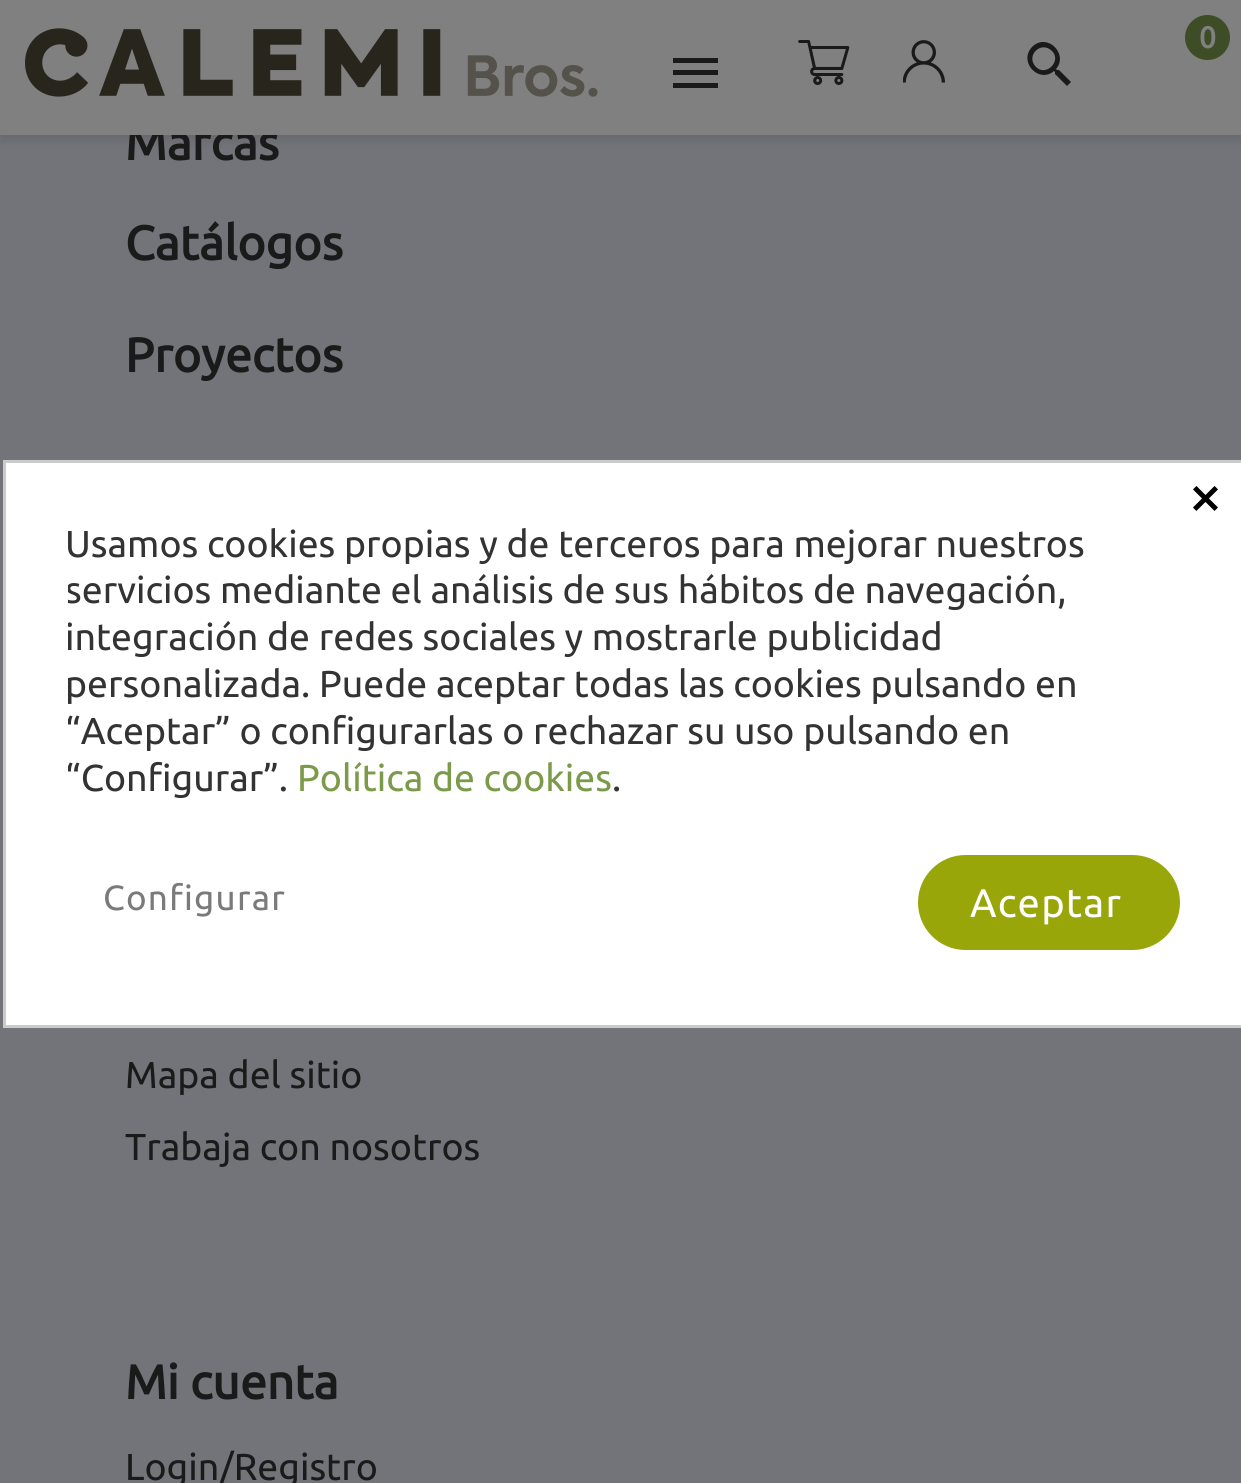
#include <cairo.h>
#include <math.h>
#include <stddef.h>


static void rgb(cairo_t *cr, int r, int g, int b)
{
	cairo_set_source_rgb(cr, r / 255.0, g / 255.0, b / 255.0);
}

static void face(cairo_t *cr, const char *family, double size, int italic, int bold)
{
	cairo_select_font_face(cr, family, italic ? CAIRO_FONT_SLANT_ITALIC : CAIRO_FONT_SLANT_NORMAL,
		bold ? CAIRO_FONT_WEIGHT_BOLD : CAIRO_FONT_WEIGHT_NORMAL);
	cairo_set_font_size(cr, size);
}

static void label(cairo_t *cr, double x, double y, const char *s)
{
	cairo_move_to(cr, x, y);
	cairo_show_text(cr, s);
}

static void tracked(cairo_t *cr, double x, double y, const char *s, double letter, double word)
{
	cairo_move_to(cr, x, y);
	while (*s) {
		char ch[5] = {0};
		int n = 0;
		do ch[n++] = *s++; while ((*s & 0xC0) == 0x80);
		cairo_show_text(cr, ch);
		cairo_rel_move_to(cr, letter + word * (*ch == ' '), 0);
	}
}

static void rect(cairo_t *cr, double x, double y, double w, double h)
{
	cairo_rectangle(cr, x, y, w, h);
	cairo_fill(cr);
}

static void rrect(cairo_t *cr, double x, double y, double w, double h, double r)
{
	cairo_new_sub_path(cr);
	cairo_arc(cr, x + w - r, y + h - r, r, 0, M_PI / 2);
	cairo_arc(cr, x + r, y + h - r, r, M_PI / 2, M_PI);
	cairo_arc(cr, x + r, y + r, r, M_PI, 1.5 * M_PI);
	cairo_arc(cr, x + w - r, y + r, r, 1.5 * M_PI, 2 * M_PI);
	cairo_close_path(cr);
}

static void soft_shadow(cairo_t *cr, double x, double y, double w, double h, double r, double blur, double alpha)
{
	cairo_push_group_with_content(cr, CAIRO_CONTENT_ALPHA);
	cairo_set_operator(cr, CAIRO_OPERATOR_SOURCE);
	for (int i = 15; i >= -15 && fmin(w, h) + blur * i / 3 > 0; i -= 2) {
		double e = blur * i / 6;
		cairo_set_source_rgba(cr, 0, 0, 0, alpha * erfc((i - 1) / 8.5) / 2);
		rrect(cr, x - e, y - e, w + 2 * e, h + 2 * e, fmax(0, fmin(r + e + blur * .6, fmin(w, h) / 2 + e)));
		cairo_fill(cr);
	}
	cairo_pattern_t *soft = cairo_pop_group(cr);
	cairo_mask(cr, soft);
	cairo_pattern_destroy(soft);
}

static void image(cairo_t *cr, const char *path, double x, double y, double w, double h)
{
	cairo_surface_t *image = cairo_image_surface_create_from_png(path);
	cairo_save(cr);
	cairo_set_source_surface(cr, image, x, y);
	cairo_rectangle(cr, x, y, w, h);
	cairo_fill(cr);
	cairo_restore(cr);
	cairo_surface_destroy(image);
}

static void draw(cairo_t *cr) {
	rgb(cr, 114, 116, 121);
	cairo_paint(cr);
	rgb(cr, 0, 0, 0);
	soft_shadow(cr, 0, 5, 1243, 135, 0, 6, 0.11);
	face(cr, "Ubuntu", 48, 0, 1);
	rgb(cr, 26, 26, 26);
	label(cr, 125, 160, "Marcas");
	rgb(cr, 128, 128, 128);
	rect(cr, 0, 0, 1241, 135);
	image(cr, "image0.png", 25, 28, 573, 69);
	rgb(cr, 26, 26, 26);
	rect(cr, 673, 58, 45, 5);
	rect(cr, 673, 70, 45, 5);
	rect(cr, 673, 83, 45, 5);
	image(cr, "image1.png", 903, 40, 42, 43);
	cairo_new_path(cr);
	cairo_move_to(cr, 1036, 67);
	cairo_curve_to(cr, 1046, 77, 1062, 61, 1052, 51);
	cairo_curve_to(cr, 1041, 40, 1025, 56, 1036, 67);
	cairo_close_path(cr);
	cairo_move_to(cr, 1059, 70);
	cairo_line_to(cr, 1071, 82);
	cairo_line_to(cr, 1067, 86);
	cairo_line_to(cr, 1055, 74);
	cairo_line_to(cr, 1055, 72);
	cairo_line_to(cr, 1054, 71);
	cairo_curve_to(cr, 1039, 84, 1018, 62, 1032, 47);
	cairo_curve_to(cr, 1047, 32, 1069, 54, 1056, 69);
	cairo_line_to(cr, 1057, 70);
	cairo_close_path(cr);
	cairo_fill(cr);
	image(cr, "image2.png", 798, 40, 52, 45);
	rgb(cr, 62, 77, 37);
	cairo_arc(cr, 1207.5, 37.5, 22.5, 0, 2 * M_PI);
	cairo_fill(cr);
	face(cr, "Ubuntu", 30, 0, 1);
	rgb(cr, 128, 128, 128);
	label(cr, 1199, 48, "0");
	face(cr, "Ubuntu", 48, 0, 1);
	rgb(cr, 26, 26, 26);
	label(cr, 125, 260, "Catálogos");
	label(cr, 125, 372, "Proyectos");
	face(cr, "Ubuntu", 37.5, 0, 0);
	label(cr, 125, 1088, "Mapa del sitio");
	label(cr, 125, 1160, "Trabaja con nosotros");
	face(cr, "Ubuntu", 48, 0, 1);
	label(cr, 125, 1399, "Mi cuenta");
	face(cr, "Ubuntu", 37.5, 0, 0);
	label(cr, 125, 1480, "Login/Registro");
	rgb(cr, 255, 255, 255);
	cairo_rectangle(cr, 4.5, 461.5, 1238, 565);
	cairo_fill_preserve(cr);
	rgb(cr, 204, 204, 204);
	cairo_set_line_width(cr, 3);
	cairo_stroke(cr);
	face(cr, "Ubuntu", 62, 0, 0);
	rgb(cr, 0, 0, 0);
	tracked(cr, 1188, 517, "×", 1.25, 0);
	face(cr, "Ubuntu", 37.5, 0, 0);
	rgb(cr, 51, 51, 51);
	label(cr, 65, 557, "Usamos cookies propias y de terceros para mejorar nuestros");
	cairo_save(cr);
	cairo_rectangle(cr, 68, 523, 1112, 282);
	cairo_clip(cr);
	label(cr, 65, 603, "servicios mediante el análisis de sus hábitos de navegación,");
	label(cr, 65, 650, "integración de redes sociales y mostrarle publicidad");
	cairo_restore(cr);
	label(cr, 65, 697, "personalizada. Puede aceptar todas las cookies pulsando en");
	cairo_save(cr);
	cairo_rectangle(cr, 68, 523, 1112, 282);
	cairo_clip(cr);
	label(cr, 65, 744, "“Aceptar” o configurarlas o rechazar su uso pulsando en");
	label(cr, 65, 791, "“Configurar”.");
	cairo_restore(cr);
	rgb(cr, 123, 154, 74);
	label(cr, 297, 791, "Política de cookies");
	rgb(cr, 51, 51, 51);
	label(cr, 612, 791, ".");
	face(cr, "Ubuntu", 35, 0, 0);
	rgb(cr, 122, 122, 122);
	tracked(cr, 103, 910, "Configurar", 1.25, 0);
	rgb(cr, 153, 166, 9);
	rrect(cr, 919.5, 856.5, 259, 92, 46);
	cairo_fill_preserve(cr);
	cairo_stroke(cr);
	face(cr, "Ubuntu", 40, 0, 0);
	rgb(cr, 255, 255, 255);
	tracked(cr, 970, 917, "Aceptar", 1.25, 0);
}

int main(void) {
	cairo_surface_t *surface = cairo_image_surface_create(CAIRO_FORMAT_RGB24, 1241, 1483);
	cairo_t *cr = cairo_create(surface);
	cairo_font_options_t *options = cairo_font_options_create();
	cairo_font_options_set_hint_metrics(options, CAIRO_HINT_METRICS_OFF);
	cairo_font_options_set_hint_style(options, CAIRO_HINT_STYLE_NONE);
	cairo_set_font_options(cr, options);
	cairo_set_miter_limit(cr, 4);
	draw(cr);
	cairo_surface_write_to_png(surface, "render.png");
	cairo_font_options_destroy(options);
	cairo_destroy(cr);
	cairo_surface_destroy(surface);
	return 0;
}
